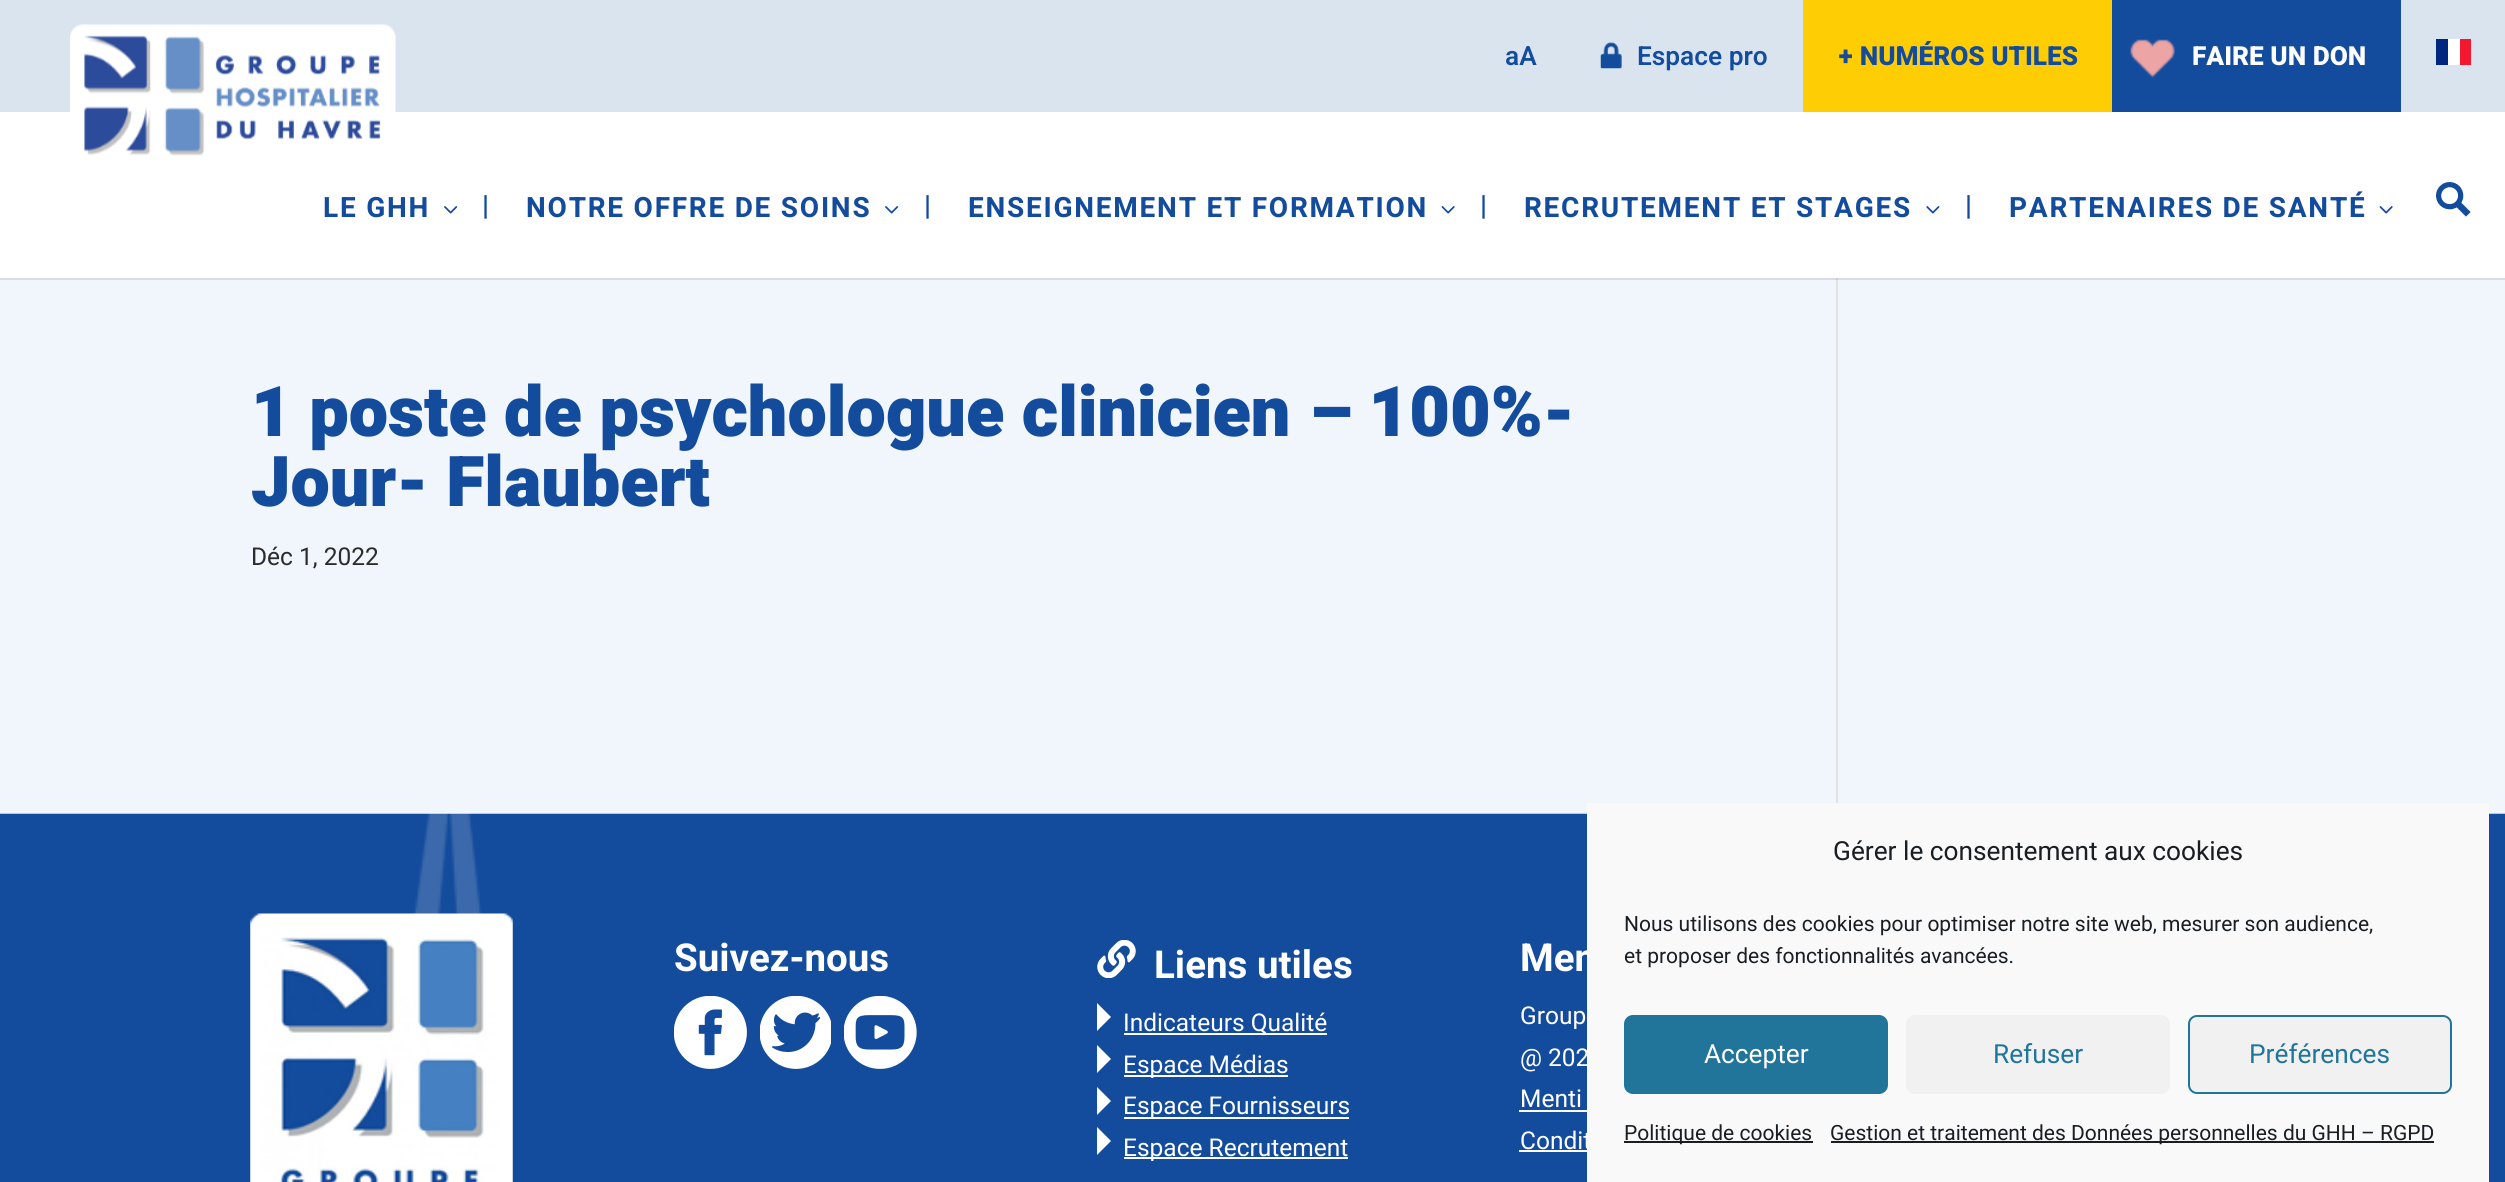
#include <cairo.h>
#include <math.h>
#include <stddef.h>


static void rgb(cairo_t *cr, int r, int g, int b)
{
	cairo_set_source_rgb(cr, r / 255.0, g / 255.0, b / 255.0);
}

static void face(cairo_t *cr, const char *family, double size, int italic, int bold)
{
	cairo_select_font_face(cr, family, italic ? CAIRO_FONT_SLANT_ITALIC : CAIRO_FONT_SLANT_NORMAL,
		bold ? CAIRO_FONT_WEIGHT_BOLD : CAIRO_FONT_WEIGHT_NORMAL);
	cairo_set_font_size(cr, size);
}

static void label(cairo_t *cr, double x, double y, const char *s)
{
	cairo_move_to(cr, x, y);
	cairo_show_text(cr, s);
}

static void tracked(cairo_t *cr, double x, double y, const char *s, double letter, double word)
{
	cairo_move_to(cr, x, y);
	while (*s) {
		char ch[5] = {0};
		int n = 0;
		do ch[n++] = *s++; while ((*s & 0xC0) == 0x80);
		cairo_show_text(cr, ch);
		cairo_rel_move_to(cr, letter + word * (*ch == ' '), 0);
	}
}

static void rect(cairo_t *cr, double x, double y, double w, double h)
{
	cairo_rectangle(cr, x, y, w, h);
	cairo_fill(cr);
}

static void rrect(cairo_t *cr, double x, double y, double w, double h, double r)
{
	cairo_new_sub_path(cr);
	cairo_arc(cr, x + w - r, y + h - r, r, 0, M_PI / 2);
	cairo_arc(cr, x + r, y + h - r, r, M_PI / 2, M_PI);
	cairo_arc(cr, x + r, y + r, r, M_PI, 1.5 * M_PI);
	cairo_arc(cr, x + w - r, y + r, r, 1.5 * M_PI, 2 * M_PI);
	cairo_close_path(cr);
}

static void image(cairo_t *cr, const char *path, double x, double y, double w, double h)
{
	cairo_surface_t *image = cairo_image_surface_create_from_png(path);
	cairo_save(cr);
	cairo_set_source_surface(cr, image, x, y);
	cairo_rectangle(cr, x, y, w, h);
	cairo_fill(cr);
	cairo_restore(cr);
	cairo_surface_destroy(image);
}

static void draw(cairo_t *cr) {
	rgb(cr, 241, 246, 252);
	cairo_paint(cr);
	rgb(cr, 218, 228, 239);
	rect(cr, 0, 0, 2505, 112);
	rgb(cr, 255, 255, 255);
	rect(cr, 0, 112, 2505, 166);
	image(cr, "image0.png", 70, 24, 326, 132);
	face(cr, "Heebo SemiBold", 26.25, 0, 0);
	rgb(cr, 19, 76, 157);
	label(cr, 1505, 65, "aA");
	image(cr, "image1.png", 1600, 42, 22, 27);
	label(cr, 1637, 65, "Espace pro");
	rgb(cr, 255, 205, 3);
	rect(cr, 1803, 0, 309, 112);
	face(cr, "Heebo ExtraBold", 26.25, 0, 0);
	rgb(cr, 19, 76, 157);
	label(cr, 1838, 65, "+ NUMÉROS UTILES");
	rect(cr, 2112, 0, 289, 112);
	image(cr, "image2.png", 2130, 39, 45, 39);
	rgb(cr, 255, 255, 255);
	label(cr, 2192, 65, "FAIRE UN DON");
	rgb(cr, 0, 38, 127);
	rect(cr, 2436, 39, 12, 26);
	rgb(cr, 255, 255, 255);
	rect(cr, 2448, 39, 12, 26);
	rgb(cr, 243, 24, 48);
	rect(cr, 2460, 39, 11, 26);
	face(cr, "Heebo", 28, 0, 1);
	rgb(cr, 19, 76, 157);
	tracked(cr, 323, 217, "LE GHH", 1.75, 0);
	image(cr, "image3.png", 444, 206, 14, 8);
	face(cr, "Heebo SemiBold", 28, 0, 0);
	label(cr, 482, 215, "|");
	face(cr, "Heebo", 28, 0, 1);
	tracked(cr, 526, 217, "NOTRE OFFRE DE SOINS", 1.75, 0);
	image(cr, "image3.png", 885, 206, 14, 8);
	face(cr, "Heebo SemiBold", 28, 0, 0);
	label(cr, 924, 215, "|");
	face(cr, "Heebo", 28, 0, 1);
	tracked(cr, 968, 217, "ENSEIGNEMENT ET FORMATION", 1.75, 0);
	image(cr, "image4.png", 1441, 206, 14, 8);
	face(cr, "Heebo SemiBold", 28, 0, 0);
	label(cr, 1480, 215, "|");
	face(cr, "Heebo", 28, 0, 1);
	tracked(cr, 1524, 217, "RECRUTEMENT ET STAGES", 1.75, 0);
	image(cr, "image5.png", 1926, 206, 14, 8);
	face(cr, "Heebo SemiBold", 28, 0, 0);
	label(cr, 1965, 215, "|");
	face(cr, "Heebo", 28, 0, 1);
	tracked(cr, 2009, 217, "PARTENAIRES DE SANTÉ", 1.75, 0);
	image(cr, "image4.png", 2379, 206, 14, 8);
	image(cr, "image6.png", 2436, 182, 35, 35);
	rgb(cr, 217, 221, 227);
	rect(cr, 0, 278, 2505, 2);
	face(cr, "Heebo Black", 70, 0, 0);
	rgb(cr, 19, 76, 157);
	label(cr, 251, 436, "1 poste de psychologue clinicien – 100%-");
	label(cr, 251, 506, "Jour- Flaubert");
	face(cr, "Roboto", 24.5, 0, 0);
	rgb(cr, 43, 43, 43);
	label(cr, 251, 565, "Déc 1, 2022");
	rgb(cr, 226, 226, 226);
	rect(cr, 1836, 278, 2, 525);
	rgb(cr, 203, 203, 203);
	rect(cr, 1836, 278, 2, 2);
	image(cr, "image7.png", 0, 813, 2505, 369);
	image(cr, "image8.png", 250, 913, 263, 269);
	face(cr, "Heebo", 38.5, 0, 1);
	rgb(cr, 255, 255, 255);
	label(cr, 674, 971, "Suivez-nous");
	image(cr, "image9.png", 674, 996, 73, 73);
	image(cr, "image10.png", 760, 996, 71, 73);
	image(cr, "image11.png", 844, 996, 73, 73);
	image(cr, "image12.png", 1097, 940, 39, 38);
	label(cr, 1154, 978, "Liens utiles");
	cairo_new_path(cr);
	cairo_move_to(cr, 1097, 1003);
	cairo_line_to(cr, 1111, 1017);
	cairo_line_to(cr, 1097, 1031);
	cairo_close_path(cr);
	cairo_fill(cr);
	rect(cr, 1124, 1033, 203, 2);
	face(cr, "Roboto", 24.5, 0, 0);
	label(cr, 1123, 1031, "Indicateurs Qualité");
	cairo_new_path(cr);
	cairo_move_to(cr, 1097, 1045);
	cairo_line_to(cr, 1111, 1059);
	cairo_line_to(cr, 1097, 1073);
	cairo_close_path(cr);
	cairo_fill(cr);
	rect(cr, 1124, 1075, 164, 2);
	label(cr, 1123, 1073, "Espace Médias");
	cairo_new_path(cr);
	cairo_move_to(cr, 1097, 1087);
	cairo_line_to(cr, 1111, 1101);
	cairo_line_to(cr, 1097, 1115);
	cairo_close_path(cr);
	cairo_fill(cr);
	rect(cr, 1124, 1117, 225, 2);
	label(cr, 1123, 1114, "Espace Fournisseurs");
	cairo_new_path(cr);
	cairo_move_to(cr, 1097, 1127);
	cairo_line_to(cr, 1111, 1141);
	cairo_line_to(cr, 1097, 1155);
	cairo_close_path(cr);
	cairo_fill(cr);
	rect(cr, 1124, 1157, 224, 2);
	label(cr, 1123, 1156, "Espace Recrutement");
	face(cr, "Heebo", 38.5, 0, 1);
	label(cr, 1520, 971, "Men");
	face(cr, "Roboto", 24.5, 0, 0);
	label(cr, 1520, 1024, "Group");
	label(cr, 1520, 1066, "@ 202");
	label(cr, 1520, 1107, "Menti");
	rect(cr, 1519, 1110, 68, 2);
	label(cr, 1520, 1149, "Condit");
	rect(cr, 1519, 1150, 68, 2);
	rgb(cr, 249, 249, 249);
	rect(cr, 1587, 803, 902, 379);
	face(cr, "Roboto", 26.25, 0, 0);
	rgb(cr, 25, 30, 35);
	label(cr, 1833, 860, "Gérer le consentement aux cookies");
	face(cr, "Roboto", 21, 0, 0);
	label(cr, 1624, 931, "Nous utilisons des cookies pour optimiser notre site web, mesurer son audience,");
	label(cr, 1624, 963, "et proposer des fonctionnalités avancées.");
	rgb(cr, 33, 117, 155);
	rrect(cr, 1625, 1016, 262, 77, 8);
	cairo_fill_preserve(cr);
	cairo_stroke(cr);
	face(cr, "Roboto", 26.25, 0, 0);
	rgb(cr, 255, 255, 255);
	label(cr, 1704, 1063, "Accepter");
	rgb(cr, 241, 241, 241);
	rrect(cr, 1906, 1015, 264, 79, 9);
	cairo_fill(cr);
	rgb(cr, 33, 117, 155);
	label(cr, 1993, 1063, "Refuser");
	rgb(cr, 241, 241, 241);
	rrect(cr, 2189, 1016, 262, 77, 8);
	cairo_fill_preserve(cr);
	rgb(cr, 33, 117, 155);
	cairo_stroke(cr);
	label(cr, 2249, 1063, "Préférences");
	rgb(cr, 25, 30, 35);
	rect(cr, 1624, 1141, 189, 2);
	face(cr, "Roboto", 21, 0, 0);
	label(cr, 1624, 1140, "Politique de cookies");
	rect(cr, 1831, 1141, 603, 2);
	label(cr, 1830, 1140, "Gestion et traitement des Données personnelles du GHH – RGPD");
}

int main(void) {
	cairo_surface_t *surface = cairo_image_surface_create(CAIRO_FORMAT_RGB24, 2505, 1182);
	cairo_t *cr = cairo_create(surface);
	cairo_font_options_t *options = cairo_font_options_create();
	cairo_font_options_set_hint_metrics(options, CAIRO_HINT_METRICS_OFF);
	cairo_font_options_set_hint_style(options, CAIRO_HINT_STYLE_NONE);
	cairo_set_font_options(cr, options);
	cairo_set_miter_limit(cr, 4);
	draw(cr);
	cairo_surface_write_to_png(surface, "render.png");
	cairo_font_options_destroy(options);
	cairo_destroy(cr);
	cairo_surface_destroy(surface);
	return 0;
}
